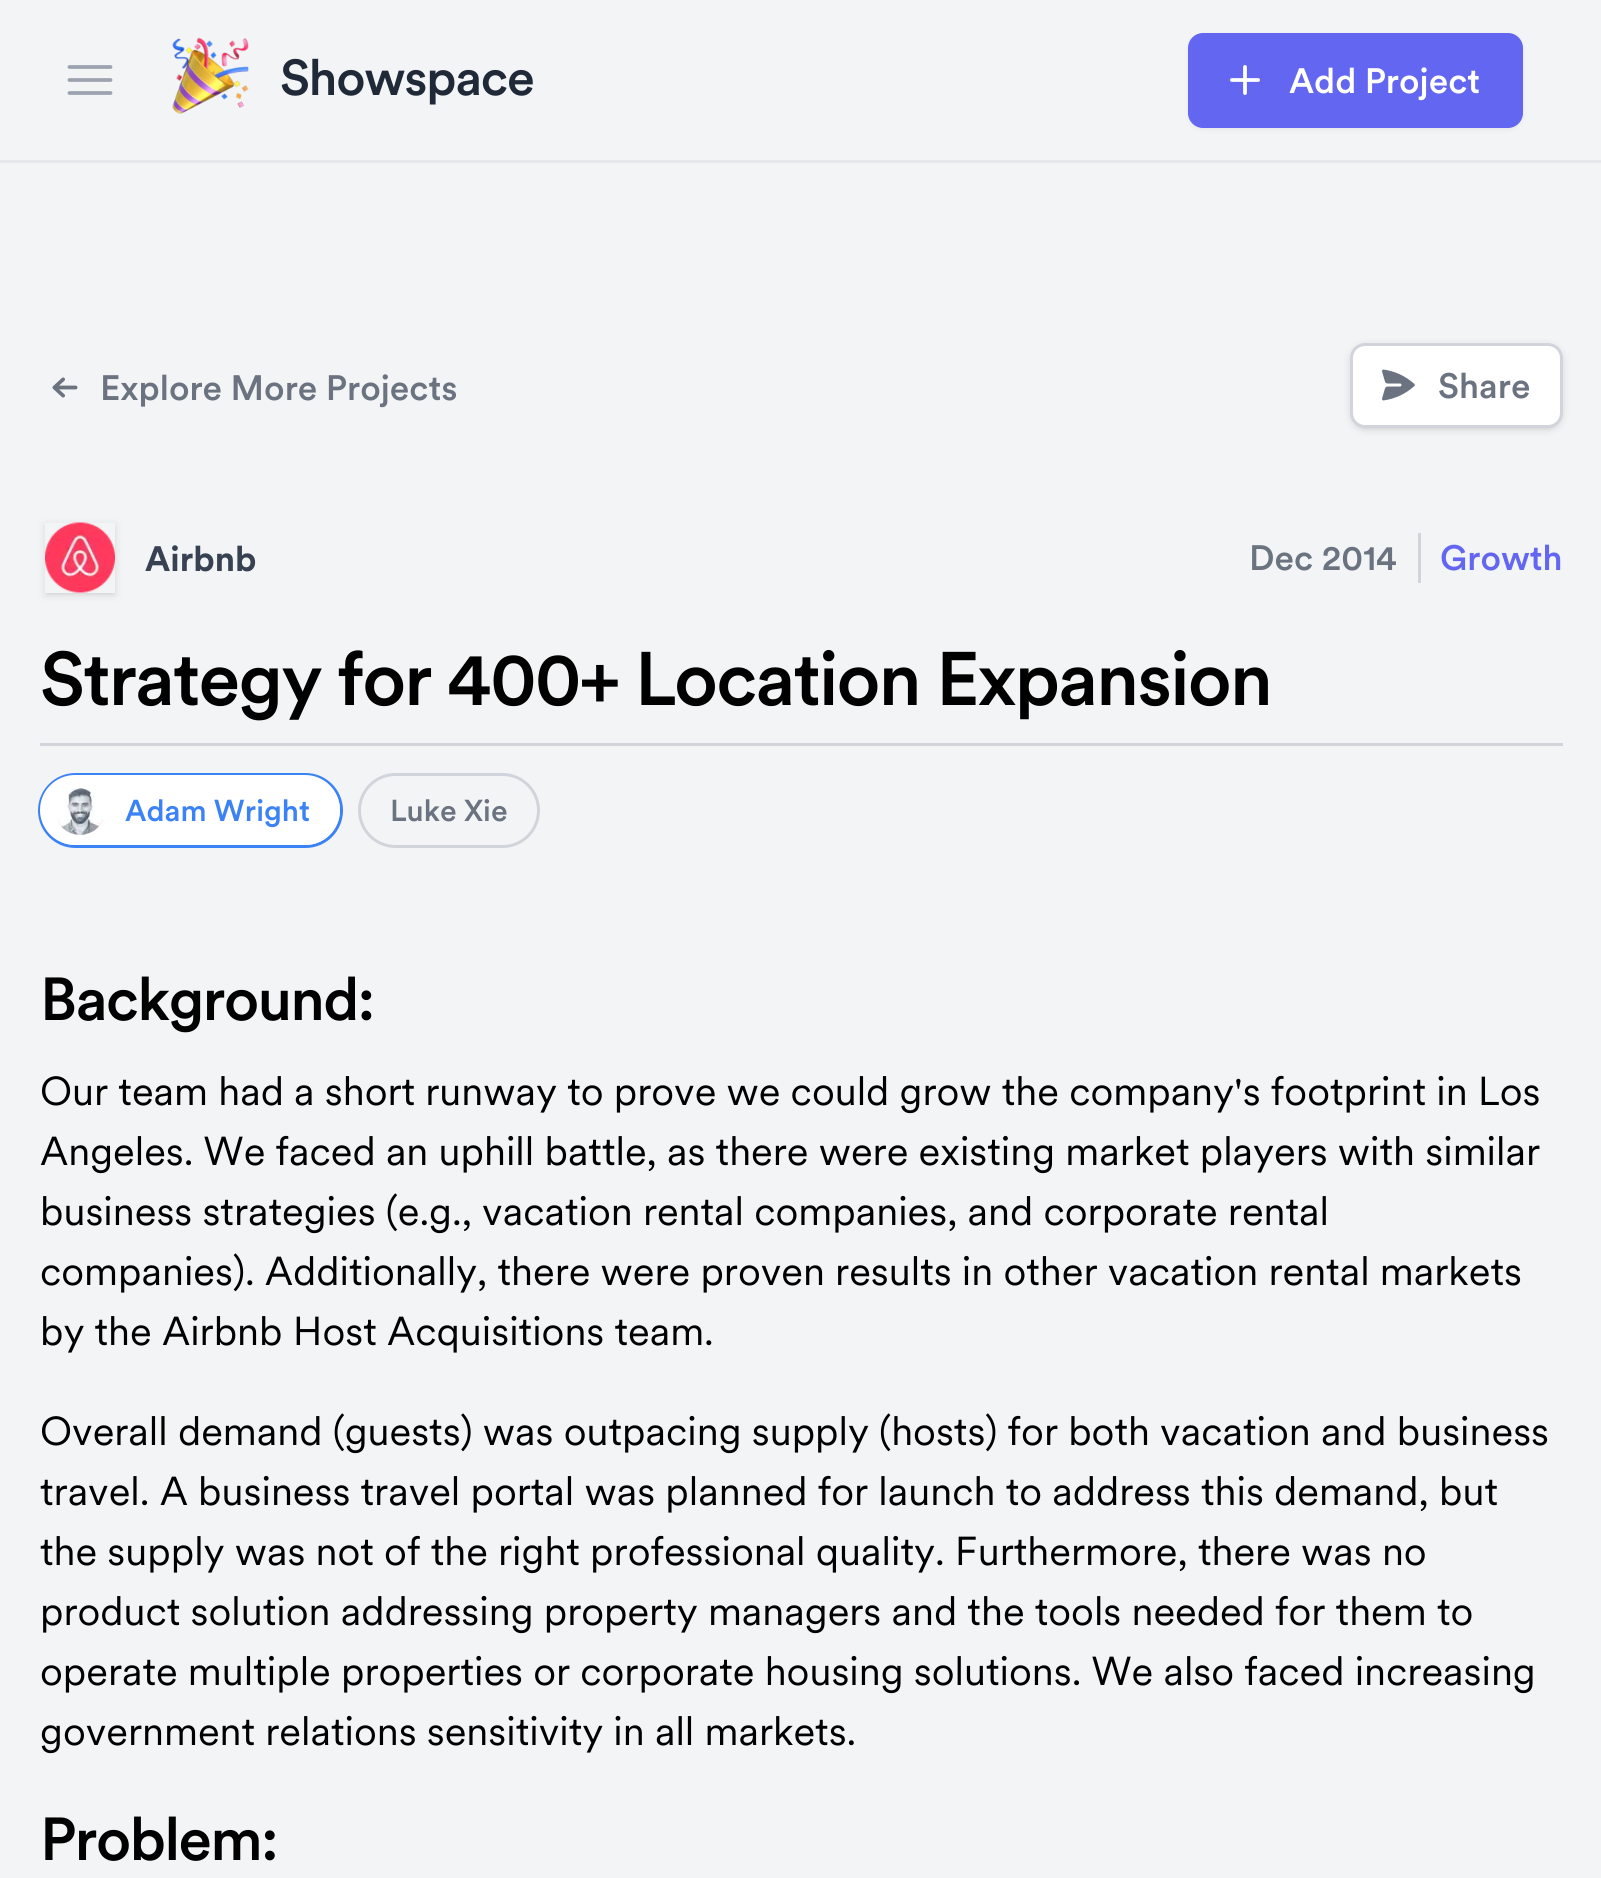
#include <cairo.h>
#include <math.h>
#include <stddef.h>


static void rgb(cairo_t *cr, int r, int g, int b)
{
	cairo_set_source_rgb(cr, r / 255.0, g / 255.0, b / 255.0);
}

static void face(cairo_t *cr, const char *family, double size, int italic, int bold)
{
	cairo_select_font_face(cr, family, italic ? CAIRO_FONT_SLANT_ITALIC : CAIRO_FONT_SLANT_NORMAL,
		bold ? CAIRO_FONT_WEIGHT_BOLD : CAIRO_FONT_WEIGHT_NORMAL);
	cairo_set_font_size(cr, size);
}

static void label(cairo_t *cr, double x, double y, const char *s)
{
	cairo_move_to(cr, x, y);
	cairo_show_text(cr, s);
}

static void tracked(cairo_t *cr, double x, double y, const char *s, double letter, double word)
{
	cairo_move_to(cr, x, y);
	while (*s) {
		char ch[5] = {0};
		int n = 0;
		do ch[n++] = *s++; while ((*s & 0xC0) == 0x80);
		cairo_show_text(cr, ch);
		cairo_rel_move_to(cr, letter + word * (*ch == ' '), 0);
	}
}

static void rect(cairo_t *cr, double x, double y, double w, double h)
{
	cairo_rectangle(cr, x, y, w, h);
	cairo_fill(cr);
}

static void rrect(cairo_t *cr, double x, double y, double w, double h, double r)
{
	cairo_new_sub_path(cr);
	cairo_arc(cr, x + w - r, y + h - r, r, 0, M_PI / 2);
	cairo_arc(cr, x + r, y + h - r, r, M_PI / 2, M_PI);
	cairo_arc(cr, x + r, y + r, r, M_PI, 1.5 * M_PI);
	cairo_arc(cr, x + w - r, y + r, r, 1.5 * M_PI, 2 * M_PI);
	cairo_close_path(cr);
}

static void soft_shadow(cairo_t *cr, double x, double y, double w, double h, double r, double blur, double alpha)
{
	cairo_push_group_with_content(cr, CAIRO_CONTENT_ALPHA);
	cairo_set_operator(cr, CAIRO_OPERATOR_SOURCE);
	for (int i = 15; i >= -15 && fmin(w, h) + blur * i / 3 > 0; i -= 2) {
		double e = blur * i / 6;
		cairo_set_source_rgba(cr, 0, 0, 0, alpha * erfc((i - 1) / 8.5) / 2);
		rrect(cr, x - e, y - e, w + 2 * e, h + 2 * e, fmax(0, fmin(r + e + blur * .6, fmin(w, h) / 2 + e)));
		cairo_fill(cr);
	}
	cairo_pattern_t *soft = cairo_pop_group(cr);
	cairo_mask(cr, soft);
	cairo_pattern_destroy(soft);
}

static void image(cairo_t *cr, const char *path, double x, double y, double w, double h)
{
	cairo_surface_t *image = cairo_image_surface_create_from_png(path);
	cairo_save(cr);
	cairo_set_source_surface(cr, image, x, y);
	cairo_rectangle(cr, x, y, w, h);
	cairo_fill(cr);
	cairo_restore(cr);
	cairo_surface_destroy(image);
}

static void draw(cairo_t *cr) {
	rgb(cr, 243, 244, 246);
	cairo_paint(cr);
	rgb(cr, 229, 231, 235);
	rect(cr, 0, 160, 1601, 3);
	cairo_new_path(cr);
	cairo_move_to(cr, 69.5, 67);
	cairo_line_to(cr, 110.5, 67);
	cairo_move_to(cr, 69.5, 80);
	cairo_line_to(cr, 110.5, 80);
	cairo_move_to(cr, 69.5, 93);
	cairo_line_to(cr, 110.5, 93);
	rgb(cr, 156, 163, 175);
	cairo_set_line_width(cr, 3.8);
	cairo_set_line_cap(cr, CAIRO_LINE_CAP_ROUND);
	cairo_set_line_join(cr, CAIRO_LINE_JOIN_ROUND);
	cairo_stroke(cr);
	image(cr, "image0.png", 172, 37, 77, 77);
	face(cr, "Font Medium", 50, 0, 0);
	rgb(cr, 31, 41, 55);
	tracked(cr, 280, 95, "Showspace", -1.25, 0);
	rgb(cr, 0, 0, 0);
	soft_shadow(cr, 1188, 35, 335, 95, 15, 2.5, 0.05);
	rgb(cr, 99, 102, 241);
	rrect(cr, 1188, 33, 335, 95, 15);
	cairo_fill(cr);
	image(cr, "image1.png", 1230, 65, 30, 30);
	face(cr, "Font Medium", 35, 0, 0);
	rgb(cr, 255, 255, 255);
	label(cr, 1289, 93, "Add Project");
	image(cr, "image2.png", 52, 377, 26, 21);
	rgb(cr, 107, 114, 128);
	label(cr, 100, 400, "Explore More Projects");
	rgb(cr, 0, 0, 0);
	soft_shadow(cr, 1353, 348, 207, 80, 13, 2.5, 0.1);
	soft_shadow(cr, 1350, 345, 213, 85, 15, 4, 0.1);
	rgb(cr, 255, 255, 255);
	rrect(cr, 1351.5, 344.5, 210, 82, 13.5);
	cairo_fill_preserve(cr);
	rgb(cr, 209, 213, 219);
	cairo_set_line_width(cr, 3);
	cairo_set_line_cap(cr, CAIRO_LINE_CAP_BUTT);
	cairo_set_line_join(cr, CAIRO_LINE_JOIN_MITER);
	cairo_stroke(cr);
	image(cr, "image3.png", 1382, 369, 33, 32);
	rgb(cr, 107, 114, 128);
	label(cr, 1438, 398, "Share");
	cairo_save(cr);
	cairo_set_fill_rule(cr, CAIRO_FILL_RULE_EVEN_ODD);
	cairo_new_path(cr);
	cairo_move_to(cr, 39, 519);
	cairo_line_to(cr, 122, 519);
	cairo_line_to(cr, 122, 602);
	cairo_line_to(cr, 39, 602);
	cairo_close_path(cr);
	cairo_move_to(cr, 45, 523);
	cairo_line_to(cr, 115, 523);
	cairo_line_to(cr, 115, 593);
	cairo_line_to(cr, 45, 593);
	cairo_close_path(cr);
	cairo_clip(cr);
	rgb(cr, 0, 0, 0);
	soft_shadow(cr, 48, 528, 65, 65, 0, 2.5, 0.1);
	cairo_restore(cr);
	cairo_save(cr);
	cairo_set_fill_rule(cr, CAIRO_FILL_RULE_EVEN_ODD);
	cairo_new_path(cr);
	cairo_move_to(cr, 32, 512);
	cairo_line_to(cr, 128, 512);
	cairo_line_to(cr, 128, 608);
	cairo_line_to(cr, 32, 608);
	cairo_close_path(cr);
	cairo_move_to(cr, 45, 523);
	cairo_line_to(cr, 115, 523);
	cairo_line_to(cr, 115, 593);
	cairo_line_to(cr, 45, 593);
	cairo_close_path(cr);
	cairo_clip(cr);
	rgb(cr, 0, 0, 0);
	soft_shadow(cr, 45, 525, 70, 70, 0, 4, 0.1);
	cairo_restore(cr);
	image(cr, "image4.png", 45, 522, 70, 71);
	face(cr, "Font", 35, 0, 1);
	rgb(cr, 55, 65, 81);
	label(cr, 145, 571, "Airbnb");
	rgb(cr, 209, 213, 219);
	rect(cr, 1418, 533, 3, 50);
	face(cr, "Font Medium", 35, 0, 0);
	rgb(cr, 107, 114, 128);
	label(cr, 1249, 570, "Dec 2014");
	rgb(cr, 99, 102, 241);
	label(cr, 1440, 570, "Growth");
	rgb(cr, 209, 213, 219);
	rect(cr, 40, 743, 1523, 3);
	face(cr, "Font Medium", 75, 0, 0);
	rgb(cr, 0, 0, 0);
	tracked(cr, 40, 705, "Strategy for 400+ Location Expansion", -1.9, 0);
	rrect(cr, 39.5, 774.5, 302, 72, 36);
	rgb(cr, 59, 130, 246);
	cairo_stroke(cr);
	rgb(cr, 255, 255, 255);
	rrect(cr, 40, 775, 300, 70, 35);
	cairo_fill(cr);
	image(cr, "image5.png", 56, 788, 47, 47);
	face(cr, "Font Medium", 30, 0, 0);
	rgb(cr, 59, 130, 246);
	label(cr, 125, 821, "Adam Wright");
	rrect(cr, 359.5, 774.5, 179, 72, 36);
	rgb(cr, 209, 213, 219);
	cairo_stroke(cr);
	rgb(cr, 107, 114, 128);
	label(cr, 390, 821, "Luke Xie");
	face(cr, "Font Medium", 60, 0, 0);
	rgb(cr, 0, 0, 0);
	tracked(cr, 40, 1020, "Background:", -1.5, 0);
	face(cr, "Font", 40, 0, 0);
	label(cr, 40, 1105, "Our team had a short runway to prove we could grow the company's footprint in Los");
	label(cr, 40, 1165, "Angeles. We faced an uphill battle, as there were existing market players with similar");
	label(cr, 40, 1225, "business strategies (e.g., vacation rental companies, and corporate rental");
	label(cr, 40, 1285, "companies). Additionally, there were proven results in other vacation rental markets");
	label(cr, 40, 1345, "by the Airbnb Host Acquisitions team.");
	label(cr, 40, 1445, "Overall demand (guests) was outpacing supply (hosts) for both vacation and business");
	label(cr, 40, 1505, "travel. A business travel portal was planned for launch to address this demand, but");
	label(cr, 40, 1565, "the supply was not of the right professional quality. Furthermore, there was no");
	label(cr, 40, 1625, "product solution addressing property managers and the tools needed for them to");
	label(cr, 40, 1685, "operate multiple properties or corporate housing solutions. We also faced increasing");
	label(cr, 40, 1745, "government relations sensitivity in all markets.");
	face(cr, "Font Medium", 60, 0, 0);
	tracked(cr, 40, 1860, "Problem:", -1.5, 0);
}

int main(void) {
	cairo_surface_t *surface = cairo_image_surface_create(CAIRO_FORMAT_RGB24, 1601, 1878);
	cairo_t *cr = cairo_create(surface);
	cairo_font_options_t *options = cairo_font_options_create();
	cairo_font_options_set_hint_metrics(options, CAIRO_HINT_METRICS_OFF);
	cairo_font_options_set_hint_style(options, CAIRO_HINT_STYLE_NONE);
	cairo_set_font_options(cr, options);
	cairo_set_miter_limit(cr, 4);
	draw(cr);
	cairo_surface_write_to_png(surface, "render.png");
	cairo_font_options_destroy(options);
	cairo_destroy(cr);
	cairo_surface_destroy(surface);
	return 0;
}
